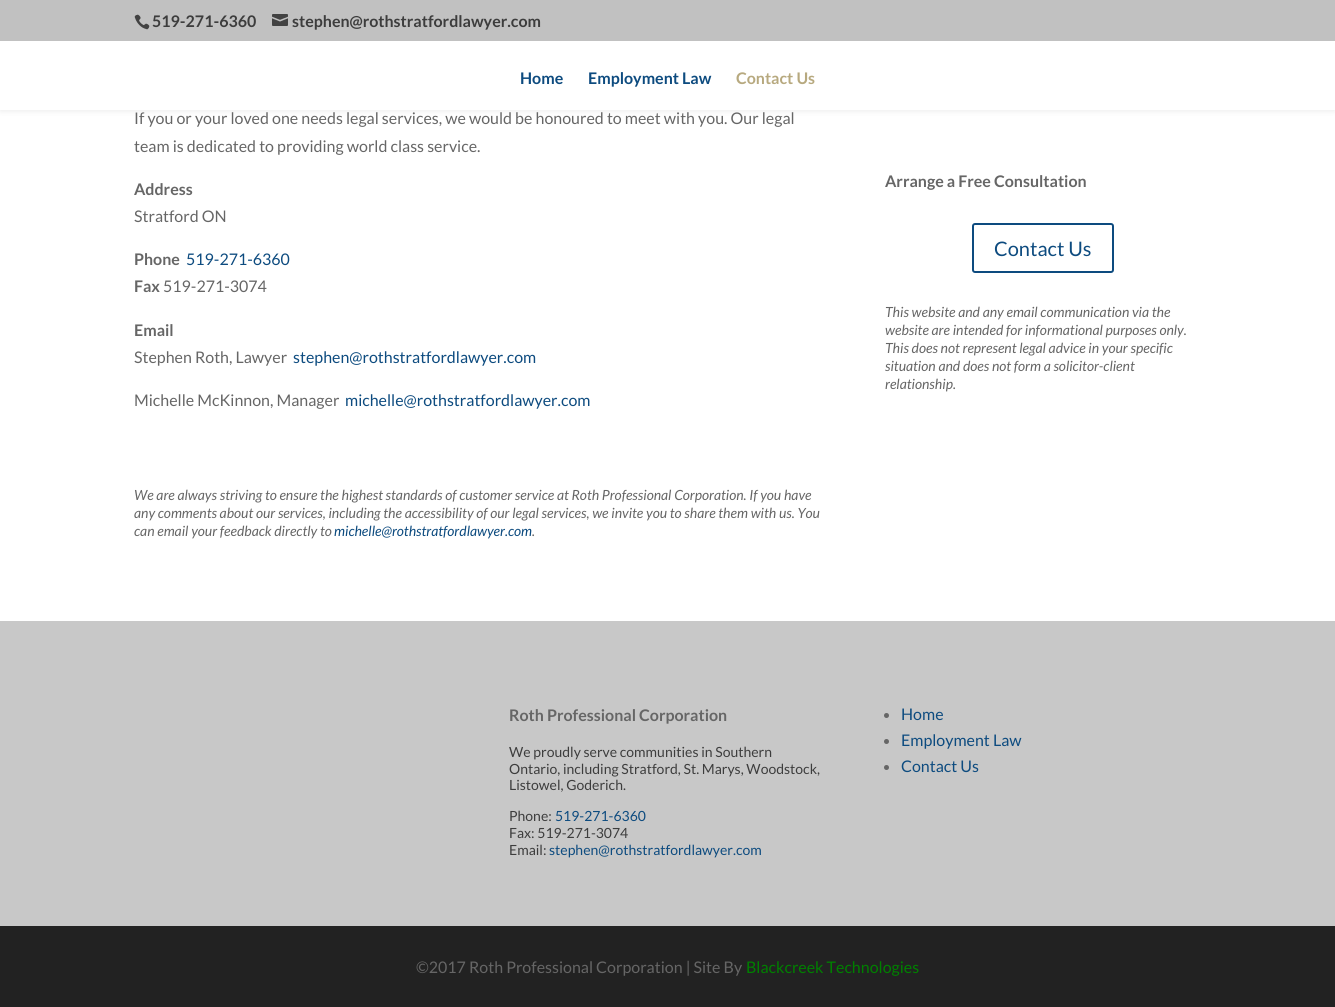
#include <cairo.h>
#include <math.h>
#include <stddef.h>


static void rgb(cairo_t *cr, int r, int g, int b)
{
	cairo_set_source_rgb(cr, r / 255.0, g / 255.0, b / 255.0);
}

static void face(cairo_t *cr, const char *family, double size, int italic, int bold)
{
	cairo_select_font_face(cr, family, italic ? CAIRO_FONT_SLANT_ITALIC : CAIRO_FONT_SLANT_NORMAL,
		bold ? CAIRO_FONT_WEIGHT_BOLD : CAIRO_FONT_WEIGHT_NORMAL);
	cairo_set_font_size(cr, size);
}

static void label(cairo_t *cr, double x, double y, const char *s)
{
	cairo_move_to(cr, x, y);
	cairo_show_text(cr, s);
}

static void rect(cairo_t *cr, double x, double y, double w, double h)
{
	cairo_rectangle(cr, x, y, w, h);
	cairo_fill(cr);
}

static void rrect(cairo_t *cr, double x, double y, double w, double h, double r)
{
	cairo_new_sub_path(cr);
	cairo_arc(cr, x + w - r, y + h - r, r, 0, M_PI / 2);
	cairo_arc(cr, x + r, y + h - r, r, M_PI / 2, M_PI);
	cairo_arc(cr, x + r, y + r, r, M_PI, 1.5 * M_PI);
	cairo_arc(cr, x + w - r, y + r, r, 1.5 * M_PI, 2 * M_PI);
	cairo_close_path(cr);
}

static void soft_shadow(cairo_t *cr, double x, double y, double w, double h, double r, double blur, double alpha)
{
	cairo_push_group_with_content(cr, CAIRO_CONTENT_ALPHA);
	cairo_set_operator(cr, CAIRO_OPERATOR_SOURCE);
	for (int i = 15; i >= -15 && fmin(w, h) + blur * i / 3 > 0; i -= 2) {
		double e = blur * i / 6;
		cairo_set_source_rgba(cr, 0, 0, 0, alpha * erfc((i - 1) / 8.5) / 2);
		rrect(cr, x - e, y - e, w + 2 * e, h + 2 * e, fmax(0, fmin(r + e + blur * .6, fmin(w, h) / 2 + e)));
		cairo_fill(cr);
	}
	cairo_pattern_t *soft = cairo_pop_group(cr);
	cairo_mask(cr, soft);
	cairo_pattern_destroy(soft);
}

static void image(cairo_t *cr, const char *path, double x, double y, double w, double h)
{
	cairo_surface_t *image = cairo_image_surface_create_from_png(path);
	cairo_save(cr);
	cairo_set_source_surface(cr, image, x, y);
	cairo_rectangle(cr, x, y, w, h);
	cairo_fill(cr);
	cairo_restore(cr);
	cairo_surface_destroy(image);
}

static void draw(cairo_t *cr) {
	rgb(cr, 255, 255, 255);
	cairo_paint(cr);
	rgb(cr, 0, 0, 0);
	soft_shadow(cr, 0, 41, 1335, 69, 0, 3.5, 0.1);
	rgb(cr, 193, 193, 193);
	rect(cr, 0, 0, 1335, 41);
	image(cr, "image0.png", 134, 14, 16, 16);
	face(cr, "Lato", 16, 0, 1);
	rgb(cr, 61, 61, 61);
	label(cr, 152, 27, "519-271-6360");
	image(cr, "image1.png", 272, 14, 16, 12);
	label(cr, 292, 27, "stephen@rothstratfordlawyer.com");
	rgb(cr, 255, 255, 255);
	rect(cr, 0, 41, 1335, 69);
	rgb(cr, 13, 75, 127);
	label(cr, 520, 84, "Home");
	label(cr, 588, 84, "Employment Law");
	rgb(cr, 183, 169, 127);
	label(cr, 736, 84, "Contact Us");
	face(cr, "Lato", 16, 0, 0);
	rgb(cr, 102, 102, 102);
	label(cr, 134, 124, "If you or your loved one needs legal services, we would be honoured to meet with you. Our legal");
	label(cr, 134, 152, "team is dedicated to providing world class service.");
	face(cr, "Lato", 16, 0, 1);
	label(cr, 134, 195, "Address");
	face(cr, "Lato", 16, 0, 0);
	label(cr, 134, 222, "Stratford ON");
	face(cr, "Lato", 16, 0, 1);
	label(cr, 134, 265, "Phone");
	face(cr, "Lato", 16, 0, 0);
	rgb(cr, 13, 75, 127);
	label(cr, 186, 265, "519-271-6360");
	face(cr, "Lato", 16, 0, 1);
	rgb(cr, 102, 102, 102);
	label(cr, 134, 292, "Fax");
	face(cr, "Lato", 16, 0, 0);
	label(cr, 163, 292, "519-271-3074");
	face(cr, "Lato", 16, 0, 1);
	label(cr, 134, 336, "Email");
	face(cr, "Lato", 16, 0, 0);
	label(cr, 134, 363, "Stephen Roth, Lawyer");
	rgb(cr, 13, 75, 127);
	label(cr, 293, 363, "stephen@rothstratfordlawyer.com");
	rgb(cr, 102, 102, 102);
	label(cr, 134, 406, "Michelle McKinnon, Manager");
	rgb(cr, 13, 75, 127);
	label(cr, 345, 406, "michelle@rothstratfordlawyer.com");
	face(cr, "Lato", 14, 1, 0);
	rgb(cr, 102, 102, 102);
	label(cr, 134, 500, "We are always striving to ensure the highest standards of customer service at Roth Professional Corporation. If you have");
	label(cr, 134, 518, "any comments about our services, including the accessibility of our legal services, we invite you to share them with us. You");
	label(cr, 134, 536, "can email your feedback directly to");
	rgb(cr, 13, 75, 127);
	label(cr, 334, 536, "michelle@rothstratfordlawyer.com");
	rgb(cr, 102, 102, 102);
	label(cr, 532, 536, ".");
	face(cr, "Lato", 16, 0, 1);
	label(cr, 885, 187, "Arrange a Free Consultation");
	rrect(cr, 973, 224, 140, 48, 2);
	rgb(cr, 13, 75, 127);
	cairo_stroke(cr);
	face(cr, "Lato", 20, 0, 0);
	label(cr, 994, 256, "Contact Us");
	face(cr, "Lato", 14, 1, 0);
	rgb(cr, 102, 102, 102);
	label(cr, 885, 317, "This website and any email communication via the");
	label(cr, 885, 335, "website are intended for informational purposes only.");
	label(cr, 885, 353, "This does not represent legal advice in your specific");
	label(cr, 885, 371, "situation and does not form a solicitor-client");
	label(cr, 885, 389, "relationship.");
	rgb(cr, 200, 200, 200);
	rect(cr, 0, 621, 1335, 305);
	face(cr, "Lato", 16, 0, 1);
	rgb(cr, 102, 102, 102);
	label(cr, 509, 721, "Roth Professional Corporation");
	face(cr, "Lato", 14, 0, 0);
	rgb(cr, 61, 61, 61);
	label(cr, 509, 757, "We proudly serve communities in Southern");
	label(cr, 509, 774, "Ontario, including Stratford, St. Marys, Woodstock,");
	label(cr, 509, 790, "Listowel, Goderich.");
	label(cr, 509, 821, "Phone:");
	rgb(cr, 13, 75, 127);
	label(cr, 555, 821, "519-271-6360");
	rgb(cr, 61, 61, 61);
	label(cr, 509, 838, "Fax: 519-271-3074");
	label(cr, 509, 855, "Email:");
	rgb(cr, 13, 75, 127);
	label(cr, 549, 855, "stephen@rothstratfordlawyer.com");
	rgb(cr, 102, 102, 102);
	cairo_new_path(cr);
	cairo_arc(cr, 886.5, 715.5, 2.5, 0, 2 * M_PI);
	cairo_fill(cr);
	face(cr, "Lato", 16, 0, 0);
	rgb(cr, 13, 75, 127);
	label(cr, 901, 720, "Home");
	rgb(cr, 102, 102, 102);
	cairo_new_path(cr);
	cairo_arc(cr, 886.5, 741.5, 2.5, 0, 2 * M_PI);
	cairo_fill(cr);
	rgb(cr, 13, 75, 127);
	label(cr, 901, 746, "Employment Law");
	rgb(cr, 102, 102, 102);
	cairo_new_path(cr);
	cairo_arc(cr, 886.5, 767.5, 2.5, 0, 2 * M_PI);
	cairo_fill(cr);
	rgb(cr, 13, 75, 127);
	label(cr, 901, 772, "Contact Us");
	rgb(cr, 34, 34, 34);
	rect(cr, 0, 926, 1335, 81);
	rgb(cr, 102, 102, 102);
	label(cr, 416, 973, "©2017 Roth Professional Corporation | Site By");
	rgb(cr, 0, 128, 0);
	label(cr, 746, 973, "Blackcreek Technologies");
}

int main(void) {
	cairo_surface_t *surface = cairo_image_surface_create(CAIRO_FORMAT_RGB24, 1335, 1007);
	cairo_t *cr = cairo_create(surface);
	cairo_font_options_t *options = cairo_font_options_create();
	cairo_font_options_set_hint_metrics(options, CAIRO_HINT_METRICS_OFF);
	cairo_font_options_set_hint_style(options, CAIRO_HINT_STYLE_NONE);
	cairo_set_font_options(cr, options);
	cairo_set_miter_limit(cr, 4);
	draw(cr);
	cairo_surface_write_to_png(surface, "render.png");
	cairo_font_options_destroy(options);
	cairo_destroy(cr);
	cairo_surface_destroy(surface);
	return 0;
}
